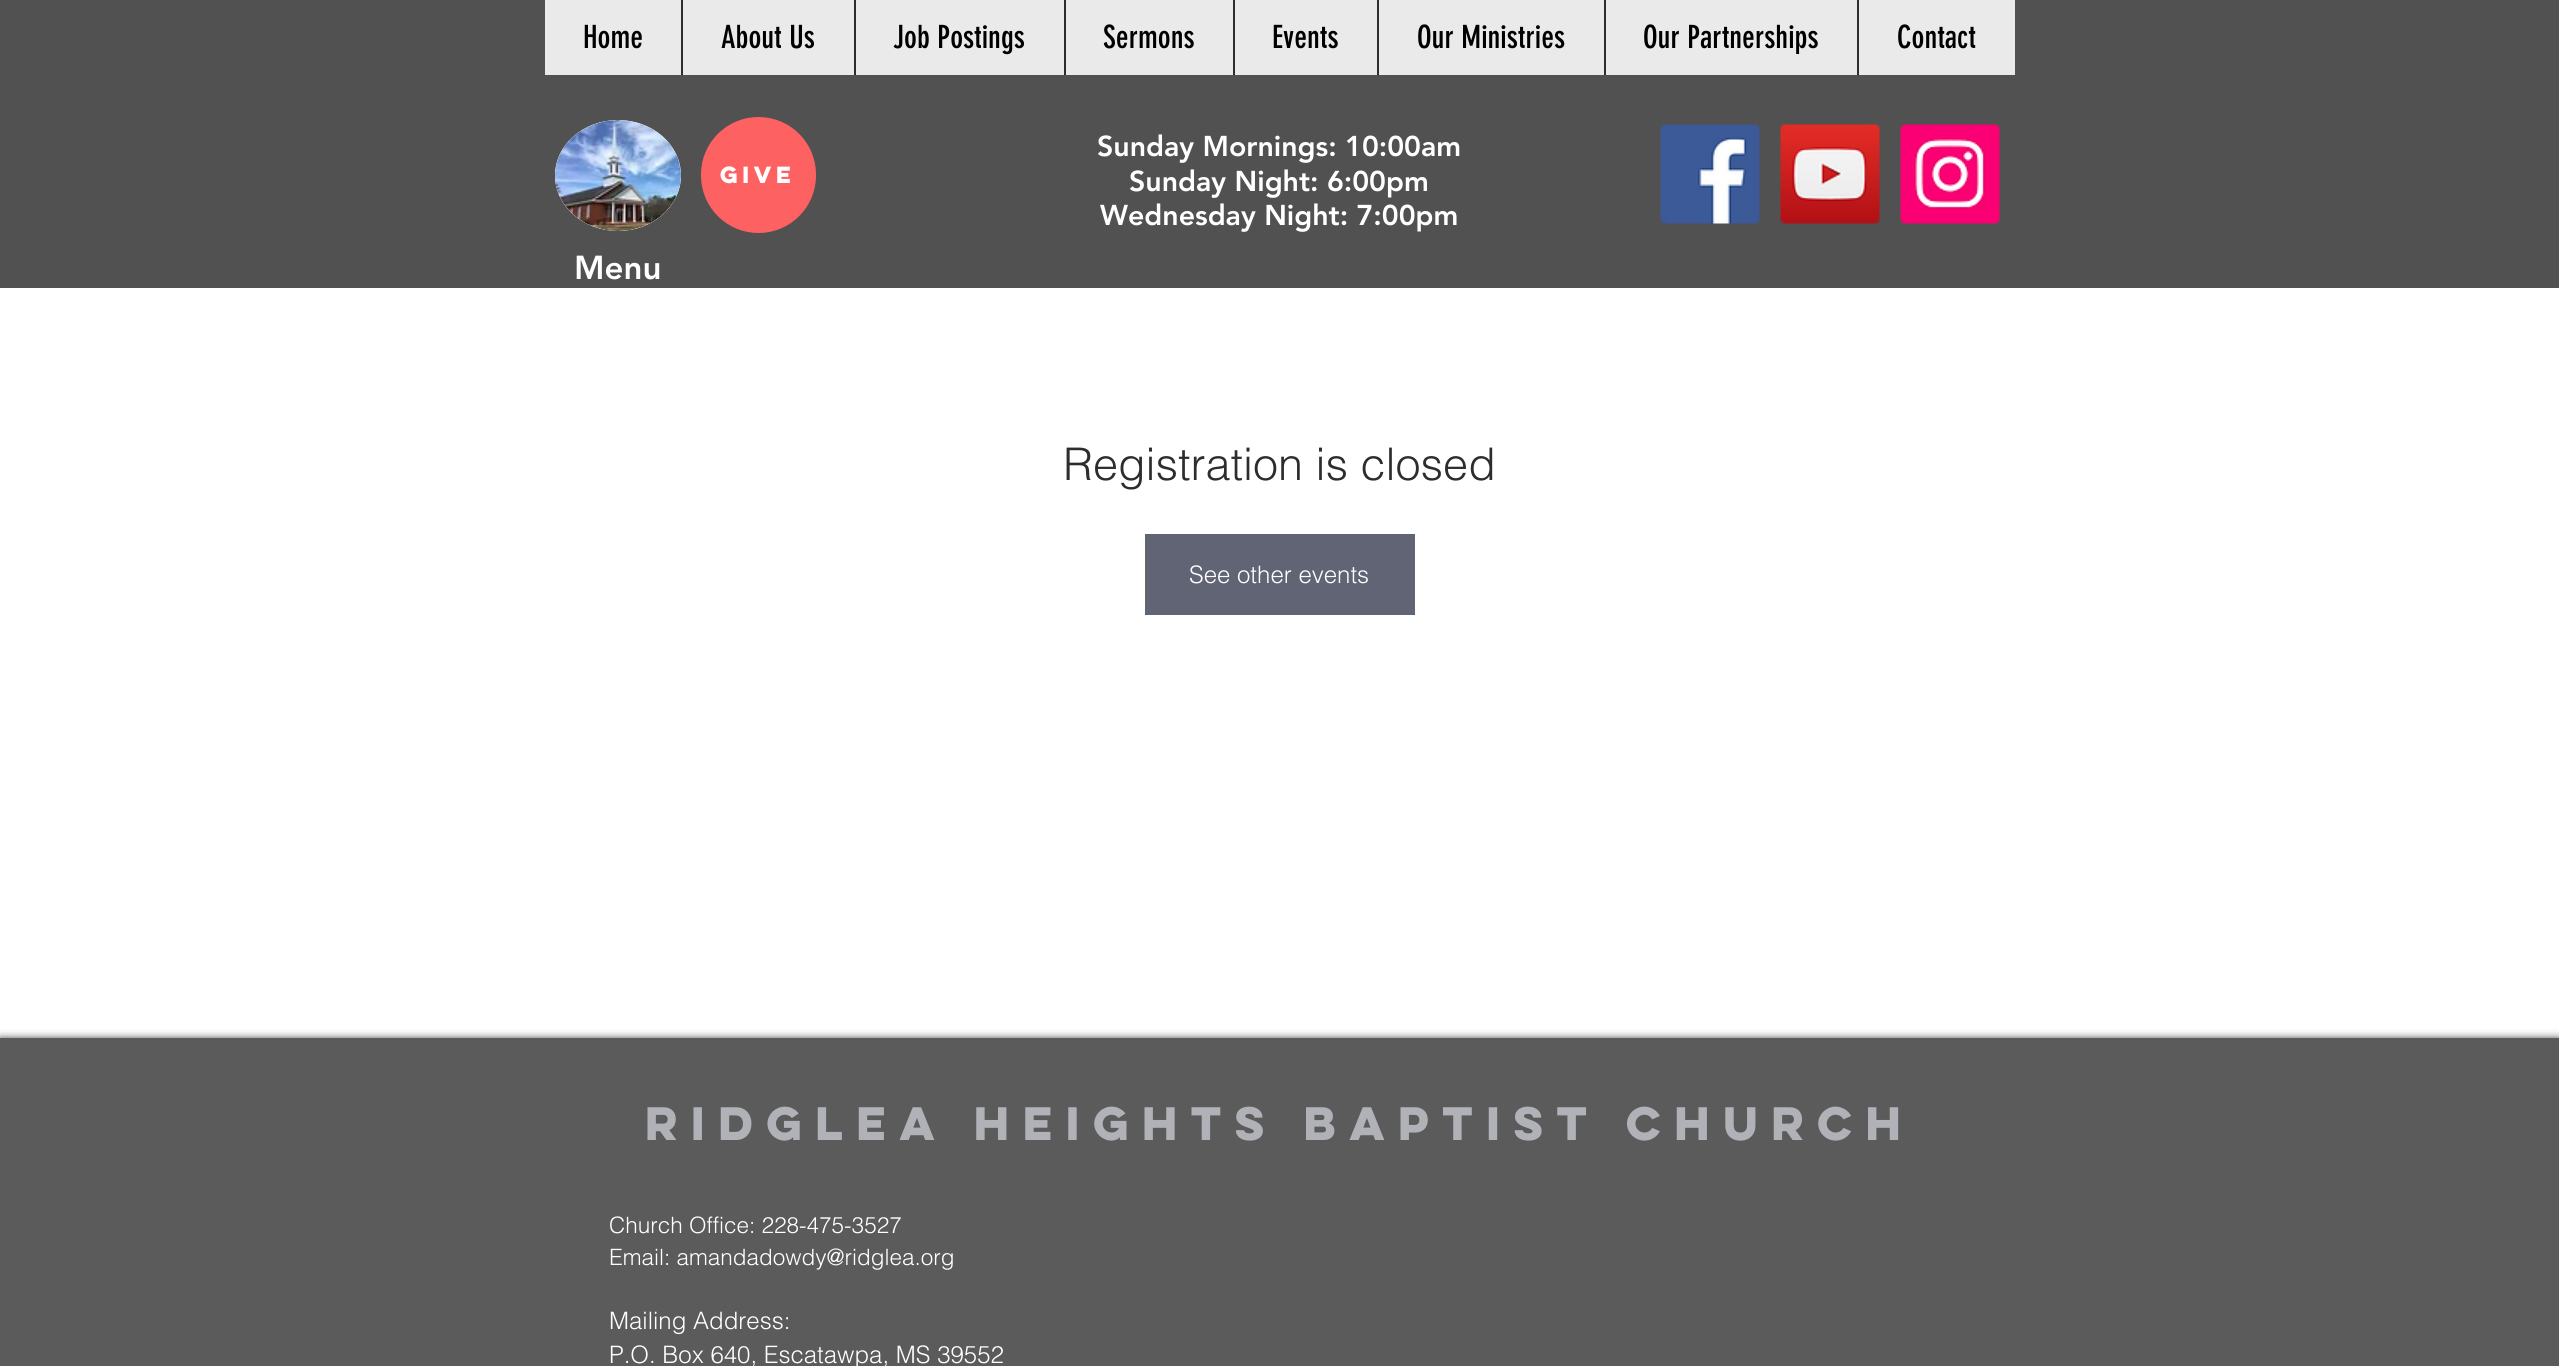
#include <cairo.h>
#include <math.h>
#include <stddef.h>


static void rgb(cairo_t *cr, int r, int g, int b)
{
	cairo_set_source_rgb(cr, r / 255.0, g / 255.0, b / 255.0);
}

static void face(cairo_t *cr, const char *family, double size, int italic, int bold)
{
	cairo_select_font_face(cr, family, italic ? CAIRO_FONT_SLANT_ITALIC : CAIRO_FONT_SLANT_NORMAL,
		bold ? CAIRO_FONT_WEIGHT_BOLD : CAIRO_FONT_WEIGHT_NORMAL);
	cairo_set_font_size(cr, size);
}

static void label(cairo_t *cr, double x, double y, const char *s)
{
	cairo_move_to(cr, x, y);
	cairo_show_text(cr, s);
}

static void tracked(cairo_t *cr, double x, double y, const char *s, double letter, double word)
{
	cairo_move_to(cr, x, y);
	while (*s) {
		char ch[5] = {0};
		int n = 0;
		do ch[n++] = *s++; while ((*s & 0xC0) == 0x80);
		cairo_show_text(cr, ch);
		cairo_rel_move_to(cr, letter + word * (*ch == ' '), 0);
	}
}

static void rect(cairo_t *cr, double x, double y, double w, double h)
{
	cairo_rectangle(cr, x, y, w, h);
	cairo_fill(cr);
}

static void rrect(cairo_t *cr, double x, double y, double w, double h, double r)
{
	cairo_new_sub_path(cr);
	cairo_arc(cr, x + w - r, y + h - r, r, 0, M_PI / 2);
	cairo_arc(cr, x + r, y + h - r, r, M_PI / 2, M_PI);
	cairo_arc(cr, x + r, y + r, r, M_PI, 1.5 * M_PI);
	cairo_arc(cr, x + w - r, y + r, r, 1.5 * M_PI, 2 * M_PI);
	cairo_close_path(cr);
}

static void soft_shadow(cairo_t *cr, double x, double y, double w, double h, double r, double blur, double alpha)
{
	cairo_push_group_with_content(cr, CAIRO_CONTENT_ALPHA);
	cairo_set_operator(cr, CAIRO_OPERATOR_SOURCE);
	for (int i = 15; i >= -15 && fmin(w, h) + blur * i / 3 > 0; i -= 2) {
		double e = blur * i / 6;
		cairo_set_source_rgba(cr, 0, 0, 0, alpha * erfc((i - 1) / 8.5) / 2);
		rrect(cr, x - e, y - e, w + 2 * e, h + 2 * e, fmax(0, fmin(r + e + blur * .6, fmin(w, h) / 2 + e)));
		cairo_fill(cr);
	}
	cairo_pattern_t *soft = cairo_pop_group(cr);
	cairo_mask(cr, soft);
	cairo_pattern_destroy(soft);
}

static void image(cairo_t *cr, const char *path, double x, double y, double w, double h)
{
	cairo_surface_t *image = cairo_image_surface_create_from_png(path);
	cairo_save(cr);
	cairo_set_source_surface(cr, image, x, y);
	cairo_rectangle(cr, x, y, w, h);
	cairo_fill(cr);
	cairo_restore(cr);
	cairo_surface_destroy(image);
}

static void draw(cairo_t *cr) {
	rgb(cr, 255, 255, 255);
	cairo_paint(cr);
	rgb(cr, 81, 81, 81);
	rect(cr, 0, 0, 2559, 288);
	rgb(cr, 234, 234, 234);
	rect(cr, 545, 0, 1470, 75);
	face(cr, "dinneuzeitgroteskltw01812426", 31.5, 0, 0);
	rgb(cr, 0, 0, 0);
	label(cr, 583, 48, "Home");
	rgb(cr, 44, 45, 46);
	rect(cr, 681, 0, 2, 75);
	rgb(cr, 0, 0, 0);
	label(cr, 721, 48, "About Us");
	rgb(cr, 44, 45, 46);
	rect(cr, 854, 0, 2, 75);
	rgb(cr, 0, 0, 0);
	label(cr, 893, 48, "Job Postings");
	rgb(cr, 44, 45, 46);
	rect(cr, 1064, 0, 2, 75);
	rgb(cr, 0, 0, 0);
	label(cr, 1103, 48, "Sermons");
	rgb(cr, 44, 45, 46);
	rect(cr, 1233, 0, 2, 75);
	rgb(cr, 0, 0, 0);
	label(cr, 1272, 48, "Events");
	rgb(cr, 44, 45, 46);
	rect(cr, 1377, 0, 2, 75);
	rgb(cr, 0, 0, 0);
	label(cr, 1417, 48, "Our Ministries");
	rgb(cr, 44, 45, 46);
	rect(cr, 1604, 0, 2, 75);
	rgb(cr, 0, 0, 0);
	label(cr, 1643, 48, "Our Partnerships");
	rgb(cr, 44, 45, 46);
	rect(cr, 1857, 0, 2, 75);
	rgb(cr, 0, 0, 0);
	label(cr, 1897, 48, "Contact");
	rgb(cr, 255, 255, 255);
	cairo_new_path(cr);
	cairo_move_to(cr, 618, 120);
	cairo_curve_to(cr, 653, 120, 681, 145, 681, 175.5);
	cairo_curve_to(cr, 681, 206, 653, 231, 618, 231);
	cairo_curve_to(cr, 583, 231, 555, 206, 555, 175.5);
	cairo_curve_to(cr, 555, 145, 583, 120, 618, 120);
	cairo_close_path(cr);
	cairo_fill(cr);
	image(cr, "image0.png", 555, 120, 126, 111);
	rgb(cr, 254, 97, 97);
	rrect(cr, 701, 117, 115, 116, 57.5);
	cairo_fill(cr);
	face(cr, "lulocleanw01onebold", 21, 0, 1);
	rgb(cr, 255, 255, 255);
	label(cr, 720, 183, "Give");
	face(cr, "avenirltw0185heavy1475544 Black", 28.5, 0, 0);
	label(cr, 1097, 156, "Sunday Mornings: 10:00am");
	label(cr, 1129, 191, "Sunday Night: 6:00pm");
	label(cr, 1100, 225, "Wednesday Night: 7:00pm");
	image(cr, "image1.png", 1660, 124, 100, 100);
	image(cr, "image2.png", 1780, 124, 100, 100);
	image(cr, "image3.png", 1900, 124, 100, 100);
	face(cr, "avenirltw0185heavy1475544 Black", 33, 0, 0);
	label(cr, 574, 279, "Menu");
	face(cr, "helvetica Light", 45, 0, 0);
	rgb(cr, 44, 45, 46);
	label(cr, 1063, 480, "Registration is closed");
	rgb(cr, 97, 100, 117);
	rect(cr, 1145, 534, 270, 81);
	face(cr, "helvetica Light", 24, 0, 0);
	rgb(cr, 255, 255, 255);
	label(cr, 1189, 583, "See other events");
	rgb(cr, 0, 0, 0);
	soft_shadow(cr, 0, 1038, 2559, 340, 0, 4, 0.7);
	rgb(cr, 91, 91, 92);
	rect(cr, 0, 1038, 2559, 328);
	face(cr, "lulocleanw01onebold", 42, 0, 1);
	rgb(cr, 176, 178, 184);
	tracked(cr, 645, 1140, "Ridglea Heights Baptist Church", 4.2, 0);
	face(cr, "helvetica Light", 22.5, 0, 0);
	rgb(cr, 255, 255, 255);
	label(cr, 609, 1233, "Church Office: 228-475-3527");
	label(cr, 609, 1265, "Email: amandadowdy@ridglea.org");
	face(cr, "helvetica Light", 24, 0, 0);
	label(cr, 609, 1329, "Mailing Address:");
	label(cr, 609, 1363, "P.O. Box 640, Escatawpa, MS 39552");
}

int main(void) {
	cairo_surface_t *surface = cairo_image_surface_create(CAIRO_FORMAT_RGB24, 2559, 1366);
	cairo_t *cr = cairo_create(surface);
	cairo_font_options_t *options = cairo_font_options_create();
	cairo_font_options_set_hint_metrics(options, CAIRO_HINT_METRICS_OFF);
	cairo_font_options_set_hint_style(options, CAIRO_HINT_STYLE_NONE);
	cairo_set_font_options(cr, options);
	cairo_set_miter_limit(cr, 4);
	draw(cr);
	cairo_surface_write_to_png(surface, "render.png");
	cairo_font_options_destroy(options);
	cairo_destroy(cr);
	cairo_surface_destroy(surface);
	return 0;
}
